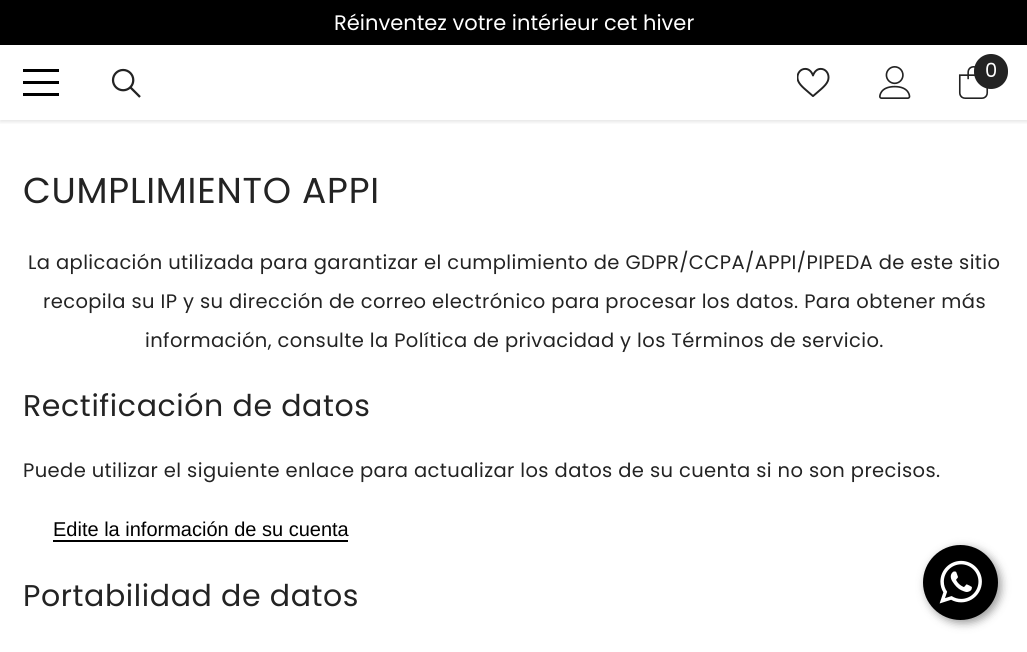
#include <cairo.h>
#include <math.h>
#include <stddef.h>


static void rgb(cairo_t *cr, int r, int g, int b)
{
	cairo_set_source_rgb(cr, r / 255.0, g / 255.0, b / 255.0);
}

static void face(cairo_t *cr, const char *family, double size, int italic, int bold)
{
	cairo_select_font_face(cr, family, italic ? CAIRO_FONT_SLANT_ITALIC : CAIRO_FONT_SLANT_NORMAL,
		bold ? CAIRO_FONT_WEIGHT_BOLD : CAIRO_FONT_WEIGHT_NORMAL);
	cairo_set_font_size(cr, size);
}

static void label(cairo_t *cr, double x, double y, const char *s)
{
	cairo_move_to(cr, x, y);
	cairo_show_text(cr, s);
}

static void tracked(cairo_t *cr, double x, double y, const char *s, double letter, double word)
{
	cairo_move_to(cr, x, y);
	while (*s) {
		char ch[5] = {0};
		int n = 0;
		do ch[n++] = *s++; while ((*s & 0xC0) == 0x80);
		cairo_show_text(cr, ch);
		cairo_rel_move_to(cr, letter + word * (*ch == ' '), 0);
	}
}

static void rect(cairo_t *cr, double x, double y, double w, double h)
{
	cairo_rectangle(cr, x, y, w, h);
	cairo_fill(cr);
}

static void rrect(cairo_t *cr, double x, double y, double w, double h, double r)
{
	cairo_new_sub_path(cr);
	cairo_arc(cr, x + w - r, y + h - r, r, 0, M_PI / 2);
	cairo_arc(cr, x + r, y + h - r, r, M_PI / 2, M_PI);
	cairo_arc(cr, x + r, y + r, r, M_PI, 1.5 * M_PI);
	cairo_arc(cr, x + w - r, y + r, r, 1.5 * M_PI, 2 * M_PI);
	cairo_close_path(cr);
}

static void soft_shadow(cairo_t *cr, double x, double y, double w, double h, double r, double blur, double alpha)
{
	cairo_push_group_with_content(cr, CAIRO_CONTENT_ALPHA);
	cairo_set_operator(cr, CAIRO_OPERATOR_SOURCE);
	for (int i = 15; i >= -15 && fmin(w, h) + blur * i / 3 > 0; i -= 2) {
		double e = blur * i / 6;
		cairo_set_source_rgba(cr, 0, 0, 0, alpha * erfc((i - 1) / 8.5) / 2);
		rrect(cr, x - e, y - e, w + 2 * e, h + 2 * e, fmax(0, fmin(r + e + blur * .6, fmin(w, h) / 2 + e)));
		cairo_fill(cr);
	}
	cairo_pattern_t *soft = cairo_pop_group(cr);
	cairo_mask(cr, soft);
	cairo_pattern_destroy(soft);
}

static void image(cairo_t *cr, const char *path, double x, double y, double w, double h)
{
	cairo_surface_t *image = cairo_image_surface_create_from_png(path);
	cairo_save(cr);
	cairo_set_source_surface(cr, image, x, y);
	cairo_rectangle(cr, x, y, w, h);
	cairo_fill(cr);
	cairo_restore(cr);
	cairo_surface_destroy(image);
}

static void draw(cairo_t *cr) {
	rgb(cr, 255, 255, 255);
	cairo_paint(cr);
	rgb(cr, 0, 0, 0);
	rect(cr, 0, 0, 1027, 45);
	face(cr, "Poppins", 21, 0, 0);
	rgb(cr, 255, 255, 255);
	label(cr, 334, 30, "Réinventez votre intérieur cet hiver");
	cairo_save(cr);
	cairo_rectangle(cr, 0, 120, 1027, 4);
	cairo_clip(cr);
	rgb(cr, 0, 0, 0);
	soft_shadow(cr, 0, 47, 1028, 75, 0, 2, 0.1);
	cairo_restore(cr);
	rgb(cr, 0, 0, 0);
	rect(cr, 23, 81, 36, 3);
	rect(cr, 23, 69, 36, 3);
	rect(cr, 23, 93, 36, 3);
	image(cr, "image0.png", 111, 68, 30, 30);
	image(cr, "image1.png", 797, 67, 33, 30);
	image(cr, "image2.png", 879, 66, 32, 33);
	image(cr, "image3.png", 958, 66, 31, 33);
	rgb(cr, 35, 35, 35);
	rrect(cr, 974, 54, 34, 35, 17);
	cairo_fill(cr);
	face(cr, "Poppins", 19.5, 0, 0);
	rgb(cr, 255, 255, 255);
	label(cr, 985, 77, "0");
	face(cr, "Poppins", 36, 0, 0);
	rgb(cr, 35, 35, 35);
	tracked(cr, 23, 203, "CUMPLIMIENTO APPI", 0.75, 0);
	face(cr, "Poppins", 19.5, 0, 0);
	tracked(cr, 28, 269, "La aplicación utilizada para garantizar el cumplimiento de GDPR/CCPA/APPI/PIPEDA de este sitio", 0.4, 0);
	tracked(cr, 43, 308, "recopila su IP y su dirección de correo electrónico para procesar los datos. Para obtener más", 0.4, 0);
	tracked(cr, 145, 347, "información, consulte la Política de privacidad y los Términos de servicio.", 0.4, 0);
	face(cr, "Poppins", 30, 0, 0);
	tracked(cr, 23, 416, "Rectificación de datos", 0.6, 0);
	face(cr, "Poppins", 19.5, 0, 0);
	tracked(cr, 23, 477, "Puede utilizar el siguiente enlace para actualizar los datos de su cuenta si no son precisos.", 0.4, 0);
	rgb(cr, 0, 0, 0);
	rect(cr, 53, 540, 295, 2);
	face(cr, "Liberation Sans", 20, 0, 0);
	label(cr, 53, 536, "Edite la información de su cuenta");
	face(cr, "Poppins", 30, 0, 0);
	rgb(cr, 35, 35, 35);
	tracked(cr, 23, 606, "Portabilidad de datos", 0.6, 0);
	rgb(cr, 0, 0, 0);
	soft_shadow(cr, 926, 548, 75, 75, 37.5, 4.5, 0.4);
	rgb(cr, 0, 0, 0);
	cairo_arc(cr, 960.5, 582.5, 37.5, 0, 2 * M_PI);
	cairo_fill(cr);
	image(cr, "image4.png", 939, 560, 43, 44);
}

int main(void) {
	cairo_surface_t *surface = cairo_image_surface_create(CAIRO_FORMAT_RGB24, 1027, 652);
	cairo_t *cr = cairo_create(surface);
	cairo_font_options_t *options = cairo_font_options_create();
	cairo_font_options_set_hint_metrics(options, CAIRO_HINT_METRICS_OFF);
	cairo_font_options_set_hint_style(options, CAIRO_HINT_STYLE_NONE);
	cairo_set_font_options(cr, options);
	cairo_set_miter_limit(cr, 4);
	draw(cr);
	cairo_surface_write_to_png(surface, "render.png");
	cairo_font_options_destroy(options);
	cairo_destroy(cr);
	cairo_surface_destroy(surface);
	return 0;
}
